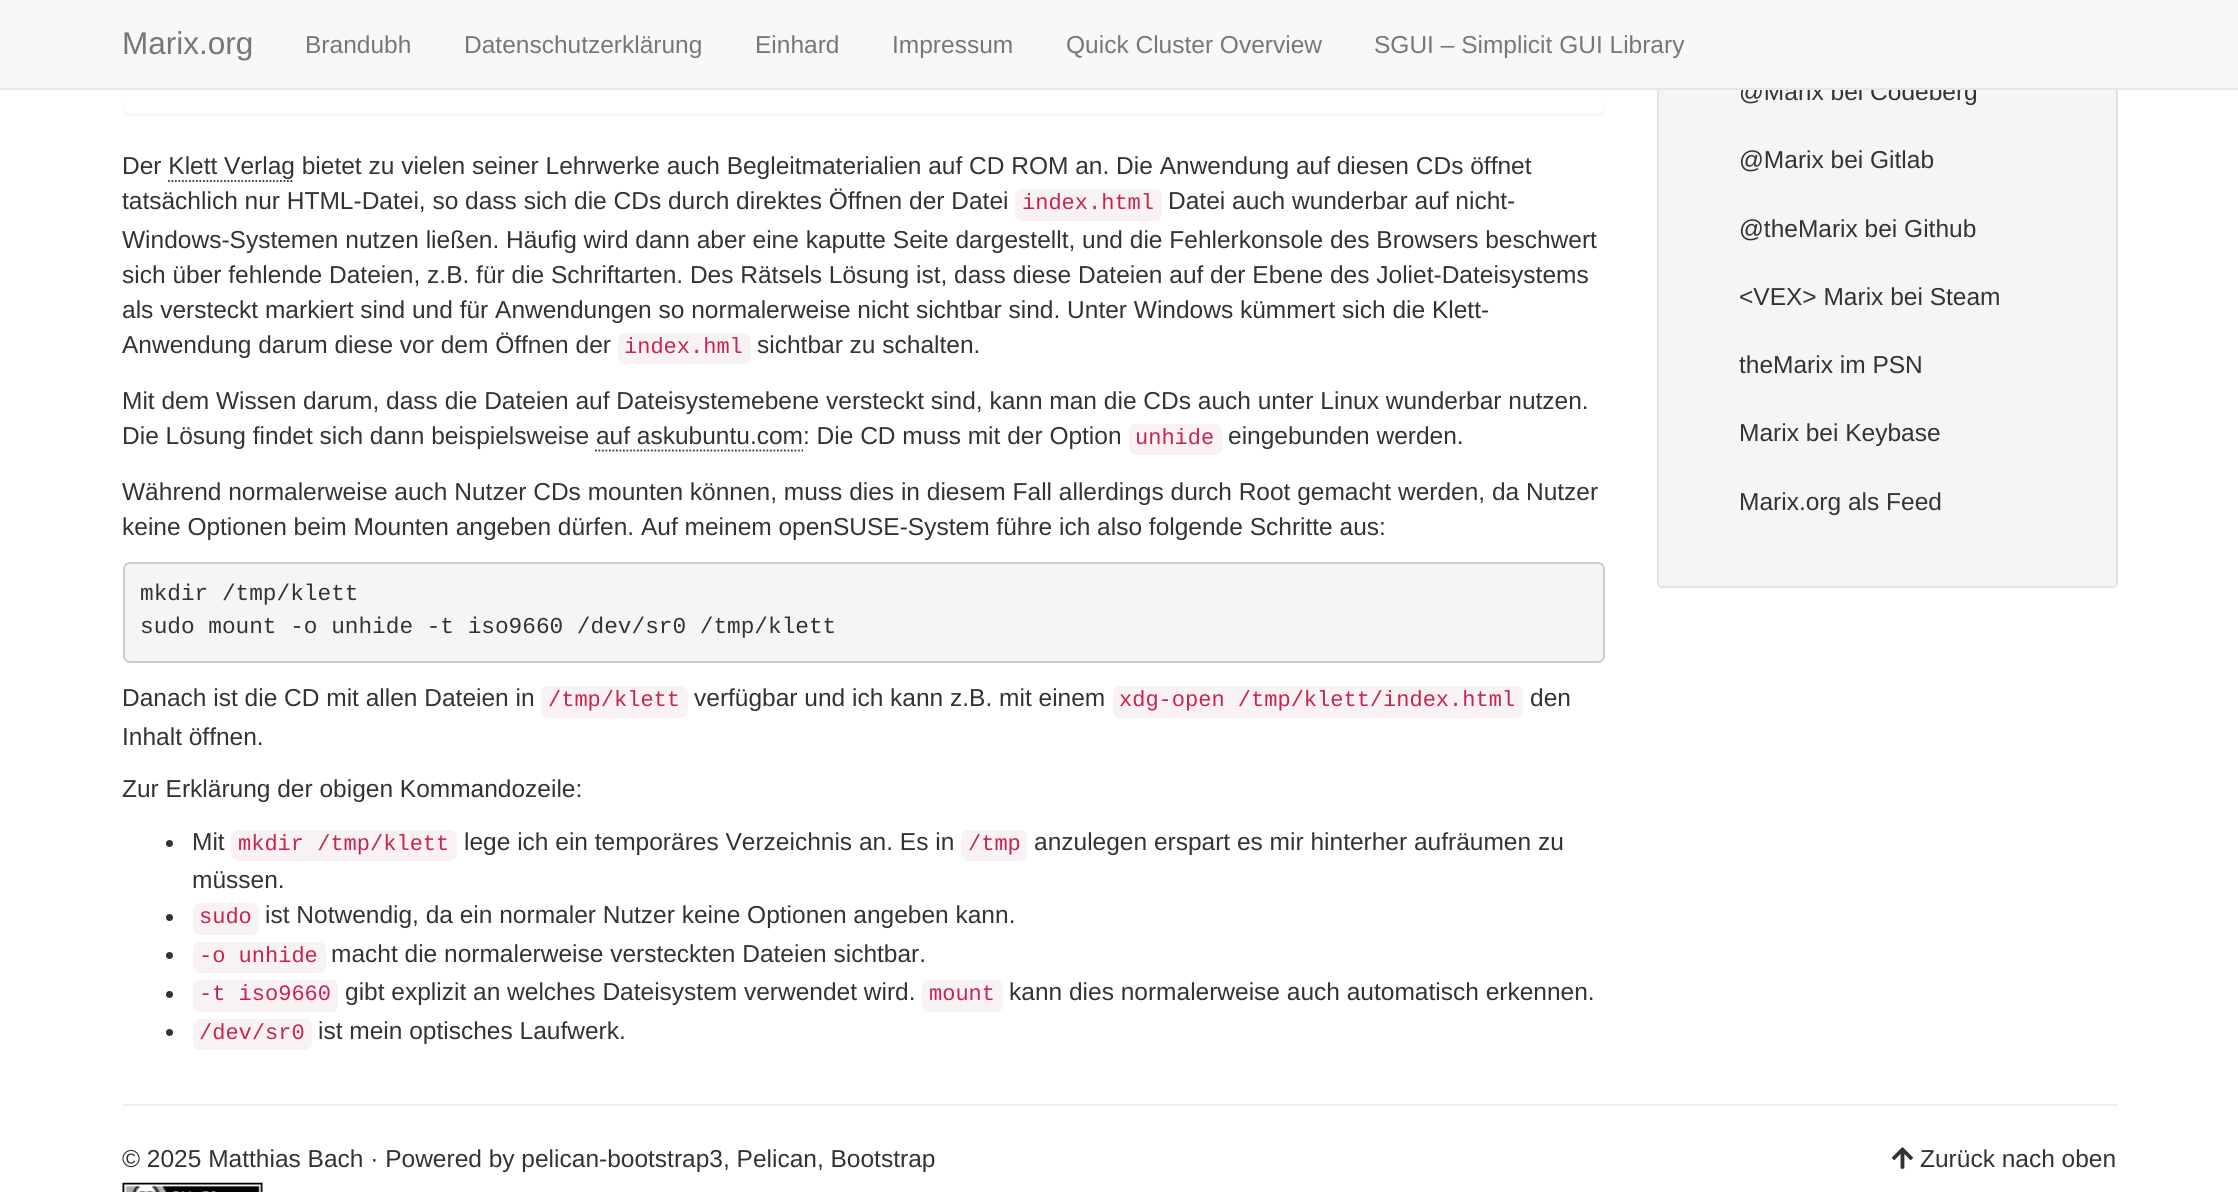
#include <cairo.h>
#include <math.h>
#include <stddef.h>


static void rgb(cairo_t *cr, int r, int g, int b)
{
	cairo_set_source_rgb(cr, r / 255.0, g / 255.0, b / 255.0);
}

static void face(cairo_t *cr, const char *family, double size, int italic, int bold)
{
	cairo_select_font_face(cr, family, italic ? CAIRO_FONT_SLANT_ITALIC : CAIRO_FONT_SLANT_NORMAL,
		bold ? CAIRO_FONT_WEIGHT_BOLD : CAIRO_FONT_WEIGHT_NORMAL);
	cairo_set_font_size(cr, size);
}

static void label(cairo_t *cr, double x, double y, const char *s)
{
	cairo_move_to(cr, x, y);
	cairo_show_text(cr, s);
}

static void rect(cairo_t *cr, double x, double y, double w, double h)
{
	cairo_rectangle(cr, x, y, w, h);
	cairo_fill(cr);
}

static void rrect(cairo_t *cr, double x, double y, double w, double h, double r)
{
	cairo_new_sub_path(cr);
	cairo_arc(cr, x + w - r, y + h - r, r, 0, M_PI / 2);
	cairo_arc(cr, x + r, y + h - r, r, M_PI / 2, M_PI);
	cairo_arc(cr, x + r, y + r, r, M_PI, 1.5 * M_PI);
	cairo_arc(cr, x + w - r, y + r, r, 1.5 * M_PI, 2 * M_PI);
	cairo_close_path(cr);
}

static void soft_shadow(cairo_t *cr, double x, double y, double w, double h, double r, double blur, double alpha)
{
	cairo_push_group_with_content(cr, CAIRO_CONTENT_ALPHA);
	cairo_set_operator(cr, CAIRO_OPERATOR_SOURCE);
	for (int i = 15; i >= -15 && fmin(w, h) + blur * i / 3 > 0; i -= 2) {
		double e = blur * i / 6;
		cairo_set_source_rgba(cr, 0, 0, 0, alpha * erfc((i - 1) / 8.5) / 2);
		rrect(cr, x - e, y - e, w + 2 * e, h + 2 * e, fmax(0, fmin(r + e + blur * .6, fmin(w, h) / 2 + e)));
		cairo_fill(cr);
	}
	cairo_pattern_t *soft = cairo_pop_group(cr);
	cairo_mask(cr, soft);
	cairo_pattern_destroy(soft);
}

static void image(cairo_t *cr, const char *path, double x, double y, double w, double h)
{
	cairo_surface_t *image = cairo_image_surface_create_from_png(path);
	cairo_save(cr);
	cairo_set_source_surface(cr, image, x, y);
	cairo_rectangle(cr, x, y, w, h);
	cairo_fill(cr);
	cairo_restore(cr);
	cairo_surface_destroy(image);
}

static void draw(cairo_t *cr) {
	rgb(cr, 255, 255, 255);
	cairo_paint(cr);
	rgb(cr, 0, 0, 0);
	soft_shadow(cr, 123, 25, 1482, 91, 7, 1, 0.05);
	rgb(cr, 255, 255, 255);
	rrect(cr, 123, 23, 1482, 91, 7);
	cairo_fill(cr);
	rgb(cr, 245, 245, 245);
	rrect(cr, 1658, -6, 459, 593, 4);
	cairo_fill_preserve(cr);
	rgb(cr, 227, 227, 227);
	cairo_stroke(cr);
	face(cr, "Liberation Sans", 24.5, 0, 0);
	rgb(cr, 51, 51, 51);
	label(cr, 1739, 100, "@Marix bei Codeberg");
	rgb(cr, 248, 248, 248);
	rect(cr, 0, 0, 2238, 88);
	rgb(cr, 231, 231, 231);
	rect(cr, 0, 88, 2238, 2);
	face(cr, "Liberation Sans", 31.5, 0, 0);
	rgb(cr, 119, 119, 119);
	label(cr, 122, 54, "Marix.org");
	face(cr, "Liberation Sans", 24.5, 0, 0);
	label(cr, 305, 53, "Brandubh");
	label(cr, 464, 53, "Datenschutzerklärung");
	label(cr, 755, 53, "Einhard");
	label(cr, 892, 53, "Impressum");
	label(cr, 1066, 53, "Quick Cluster Overview");
	label(cr, 1374, 53, "SGUI – Simplicit GUI Library");
	rgb(cr, 51, 51, 51);
	label(cr, 122, 174, "Der Klett Verlag bietet zu vielen seiner Lehrwerke auch Begleitmaterialien auf CD ROM an. Die Anwendung auf diesen CDs öffnet");
	cairo_new_path(cr);
	cairo_move_to(cr, 168, 181);
	cairo_line_to(cr, 294, 181);
	cairo_set_line_width(cr, 1.8);
	cairo_set_dash(cr, (double[]){1.75, 1.75}, 2, 0);
	cairo_stroke(cr);
	label(cr, 122, 209, "tatsächlich nur HTML-Datei, so dass sich die CDs durch direktes Öffnen der Datei");
	rgb(cr, 249, 242, 244);
	rrect(cr, 1015, 189, 147, 32, 7);
	cairo_fill(cr);
	face(cr, "Liberation Mono", 22, 0, 0);
	rgb(cr, 199, 37, 78);
	label(cr, 1022, 209, "index.html");
	face(cr, "Liberation Sans", 24.5, 0, 0);
	rgb(cr, 51, 51, 51);
	label(cr, 1168, 209, "Datei auch wunderbar auf nicht-");
	label(cr, 122, 248, "Windows-Systemen nutzen ließen. Häufig wird dann aber eine kaputte Seite dargestellt, und die Fehlerkonsole des Browsers beschwert");
	label(cr, 122, 283, "sich über fehlende Dateien, z.B. für die Schriftarten. Des Rätsels Lösung ist, dass diese Dateien auf der Ebene des Joliet-Dateisystems");
	label(cr, 122, 318, "als versteckt markiert sind und für Anwendungen so normalerweise nicht sichtbar sind. Unter Windows kümmert sich die Klett-");
	label(cr, 122, 353, "Anwendung darum diese vor dem Öffnen der");
	rgb(cr, 249, 242, 244);
	rrect(cr, 618, 333, 133, 31, 7);
	cairo_fill(cr);
	face(cr, "Liberation Mono", 22, 0, 0);
	rgb(cr, 199, 37, 78);
	label(cr, 624, 353, "index.hml");
	face(cr, "Liberation Sans", 24.5, 0, 0);
	rgb(cr, 51, 51, 51);
	label(cr, 757, 353, "sichtbar zu schalten.");
	label(cr, 122, 409, "Mit dem Wissen darum, dass die Dateien auf Dateisystemebene versteckt sind, kann man die CDs auch unter Linux wunderbar nutzen.");
	label(cr, 122, 444, "Die Lösung findet sich dann beispielsweise auf askubuntu.com: Die CD muss mit der Option");
	rgb(cr, 249, 242, 244);
	rrect(cr, 1129, 424, 93, 31, 7);
	cairo_fill(cr);
	face(cr, "Liberation Mono", 22, 0, 0);
	rgb(cr, 199, 37, 78);
	label(cr, 1135, 444, "unhide");
	face(cr, "Liberation Sans", 24.5, 0, 0);
	rgb(cr, 51, 51, 51);
	label(cr, 1228, 444, "eingebunden werden.");
	cairo_new_path(cr);
	cairo_move_to(cr, 595, 450.5);
	cairo_line_to(cr, 803, 450.5);
	cairo_stroke(cr);
	label(cr, 122, 500, "Während normalerweise auch Nutzer CDs mounten können, muss dies in diesem Fall allerdings durch Root gemacht werden, da Nutzer");
	label(cr, 122, 535, "keine Optionen beim Mounten angeben dürfen. Auf meinem openSUSE-System führe ich also folgende Schritte aus:");
	rgb(cr, 245, 245, 245);
	rrect(cr, 124, 563, 1480, 99, 6);
	cairo_fill_preserve(cr);
	rgb(cr, 204, 204, 204);
	cairo_set_line_width(cr, 2);
	cairo_set_dash(cr, NULL, 0, 0);
	cairo_stroke(cr);
	face(cr, "Liberation Mono", 22.75, 0, 0);
	rgb(cr, 51, 51, 51);
	label(cr, 140, 600, "mkdir /tmp/klett");
	label(cr, 140, 633, "sudo mount -o unhide -t iso9660 /dev/sr0 /tmp/klett");
	face(cr, "Liberation Sans", 24.5, 0, 0);
	label(cr, 122, 706, "Danach ist die CD mit allen Dateien in");
	rgb(cr, 249, 242, 244);
	rrect(cr, 541, 686, 147, 32, 7);
	cairo_fill(cr);
	face(cr, "Liberation Mono", 22, 0, 0);
	rgb(cr, 199, 37, 78);
	label(cr, 548, 706, "/tmp/klett");
	face(cr, "Liberation Sans", 24.5, 0, 0);
	rgb(cr, 51, 51, 51);
	label(cr, 694, 706, "verfügbar und ich kann z.B. mit einem");
	rgb(cr, 249, 242, 244);
	rrect(cr, 1113, 686, 410, 32, 7);
	cairo_fill(cr);
	face(cr, "Liberation Mono", 22, 0, 0);
	rgb(cr, 199, 37, 78);
	label(cr, 1119, 706, "xdg-open /tmp/klett/index.html");
	face(cr, "Liberation Sans", 24.5, 0, 0);
	rgb(cr, 51, 51, 51);
	label(cr, 1530, 706, "den");
	label(cr, 122, 745, "Inhalt öffnen.");
	label(cr, 122, 797, "Zur Erklärung der obigen Kommandozeile:");
	cairo_new_path(cr);
	cairo_arc(cr, 169.5, 843.5, 3.5, 0, 2 * M_PI);
	cairo_fill(cr);
	label(cr, 192, 850, "Mit");
	rgb(cr, 249, 242, 244);
	rrect(cr, 231, 830, 226, 31, 7);
	cairo_fill(cr);
	face(cr, "Liberation Mono", 22, 0, 0);
	rgb(cr, 199, 37, 78);
	label(cr, 238, 850, "mkdir /tmp/klett");
	face(cr, "Liberation Sans", 24.5, 0, 0);
	rgb(cr, 51, 51, 51);
	label(cr, 464, 850, "lege ich ein temporäres Verzeichnis an. Es in");
	rgb(cr, 249, 242, 244);
	rrect(cr, 961, 830, 66, 31, 7);
	cairo_fill(cr);
	face(cr, "Liberation Mono", 22, 0, 0);
	rgb(cr, 199, 37, 78);
	label(cr, 968, 850, "/tmp");
	face(cr, "Liberation Sans", 24.5, 0, 0);
	rgb(cr, 51, 51, 51);
	label(cr, 1034, 850, "anzulegen erspart es mir hinterher aufräumen zu");
	label(cr, 192, 888, "müssen.");
	cairo_new_path(cr);
	cairo_arc(cr, 169.5, 917.5, 3.5, 0, 2 * M_PI);
	cairo_fill(cr);
	rgb(cr, 249, 242, 244);
	rrect(cr, 193, 903, 66, 32, 7);
	cairo_fill(cr);
	face(cr, "Liberation Mono", 22, 0, 0);
	rgb(cr, 199, 37, 78);
	label(cr, 199, 923, "sudo");
	face(cr, "Liberation Sans", 24.5, 0, 0);
	rgb(cr, 51, 51, 51);
	label(cr, 265, 923, "ist Notwendig, da ein normaler Nutzer keine Optionen angeben kann.");
	cairo_new_path(cr);
	cairo_arc(cr, 169.5, 955.5, 3.5, 0, 2 * M_PI);
	cairo_fill(cr);
	rgb(cr, 249, 242, 244);
	rrect(cr, 193, 942, 133, 31, 7);
	cairo_fill(cr);
	face(cr, "Liberation Mono", 22, 0, 0);
	rgb(cr, 199, 37, 78);
	label(cr, 199, 962, "-o unhide");
	face(cr, "Liberation Sans", 24.5, 0, 0);
	rgb(cr, 51, 51, 51);
	label(cr, 331, 962, "macht die normalerweise versteckten Dateien sichtbar.");
	cairo_new_path(cr);
	cairo_arc(cr, 169.5, 994.5, 3.5, 0, 2 * M_PI);
	cairo_fill(cr);
	rgb(cr, 249, 242, 244);
	rrect(cr, 193, 980, 145, 32, 7);
	cairo_fill(cr);
	face(cr, "Liberation Mono", 22, 0, 0);
	rgb(cr, 199, 37, 78);
	label(cr, 199, 1000, "-t iso9660");
	face(cr, "Liberation Sans", 24.5, 0, 0);
	rgb(cr, 51, 51, 51);
	label(cr, 345, 1000, "gibt explizit an welches Dateisystem verwendet wird.");
	rgb(cr, 249, 242, 244);
	rrect(cr, 922, 980, 81, 32, 7);
	cairo_fill(cr);
	face(cr, "Liberation Mono", 22, 0, 0);
	rgb(cr, 199, 37, 78);
	label(cr, 929, 1000, "mount");
	face(cr, "Liberation Sans", 24.5, 0, 0);
	rgb(cr, 51, 51, 51);
	label(cr, 1009, 1000, "kann dies normalerweise auch automatisch erkennen.");
	cairo_new_path(cr);
	cairo_arc(cr, 169.5, 1032.5, 3.5, 0, 2 * M_PI);
	cairo_fill(cr);
	rgb(cr, 249, 242, 244);
	rrect(cr, 193, 1019, 119, 31, 7);
	cairo_fill(cr);
	face(cr, "Liberation Mono", 22, 0, 0);
	rgb(cr, 199, 37, 78);
	label(cr, 199, 1039, "/dev/sr0");
	face(cr, "Liberation Sans", 24.5, 0, 0);
	rgb(cr, 51, 51, 51);
	label(cr, 318, 1039, "ist mein optisches Laufwerk.");
	label(cr, 1739, 168, "@Marix bei Gitlab");
	label(cr, 1739, 237, "@theMarix bei Github");
	label(cr, 1739, 305, "<VEX> Marix bei Steam");
	label(cr, 1739, 373, "theMarix im PSN");
	label(cr, 1739, 441, "Marix bei Keybase");
	label(cr, 1739, 510, "Marix.org als Feed");
	rgb(cr, 238, 238, 238);
	rect(cr, 123, 1104, 1995, 2);
	rgb(cr, 51, 51, 51);
	label(cr, 122, 1167, "© 2025 Matthias Bach · Powered by pelican-bootstrap3, Pelican, Bootstrap");
	image(cr, "image0.png", 122, 1182, 141, 10);
	image(cr, "image1.png", 1892, 1147, 21, 22);
	label(cr, 1920, 1167, "Zurück nach oben");
}

int main(void) {
	cairo_surface_t *surface = cairo_image_surface_create(CAIRO_FORMAT_RGB24, 2238, 1192);
	cairo_t *cr = cairo_create(surface);
	cairo_font_options_t *options = cairo_font_options_create();
	cairo_font_options_set_hint_metrics(options, CAIRO_HINT_METRICS_OFF);
	cairo_font_options_set_hint_style(options, CAIRO_HINT_STYLE_NONE);
	cairo_set_font_options(cr, options);
	cairo_set_miter_limit(cr, 4);
	draw(cr);
	cairo_surface_write_to_png(surface, "render.png");
	cairo_font_options_destroy(options);
	cairo_destroy(cr);
	cairo_surface_destroy(surface);
	return 0;
}
